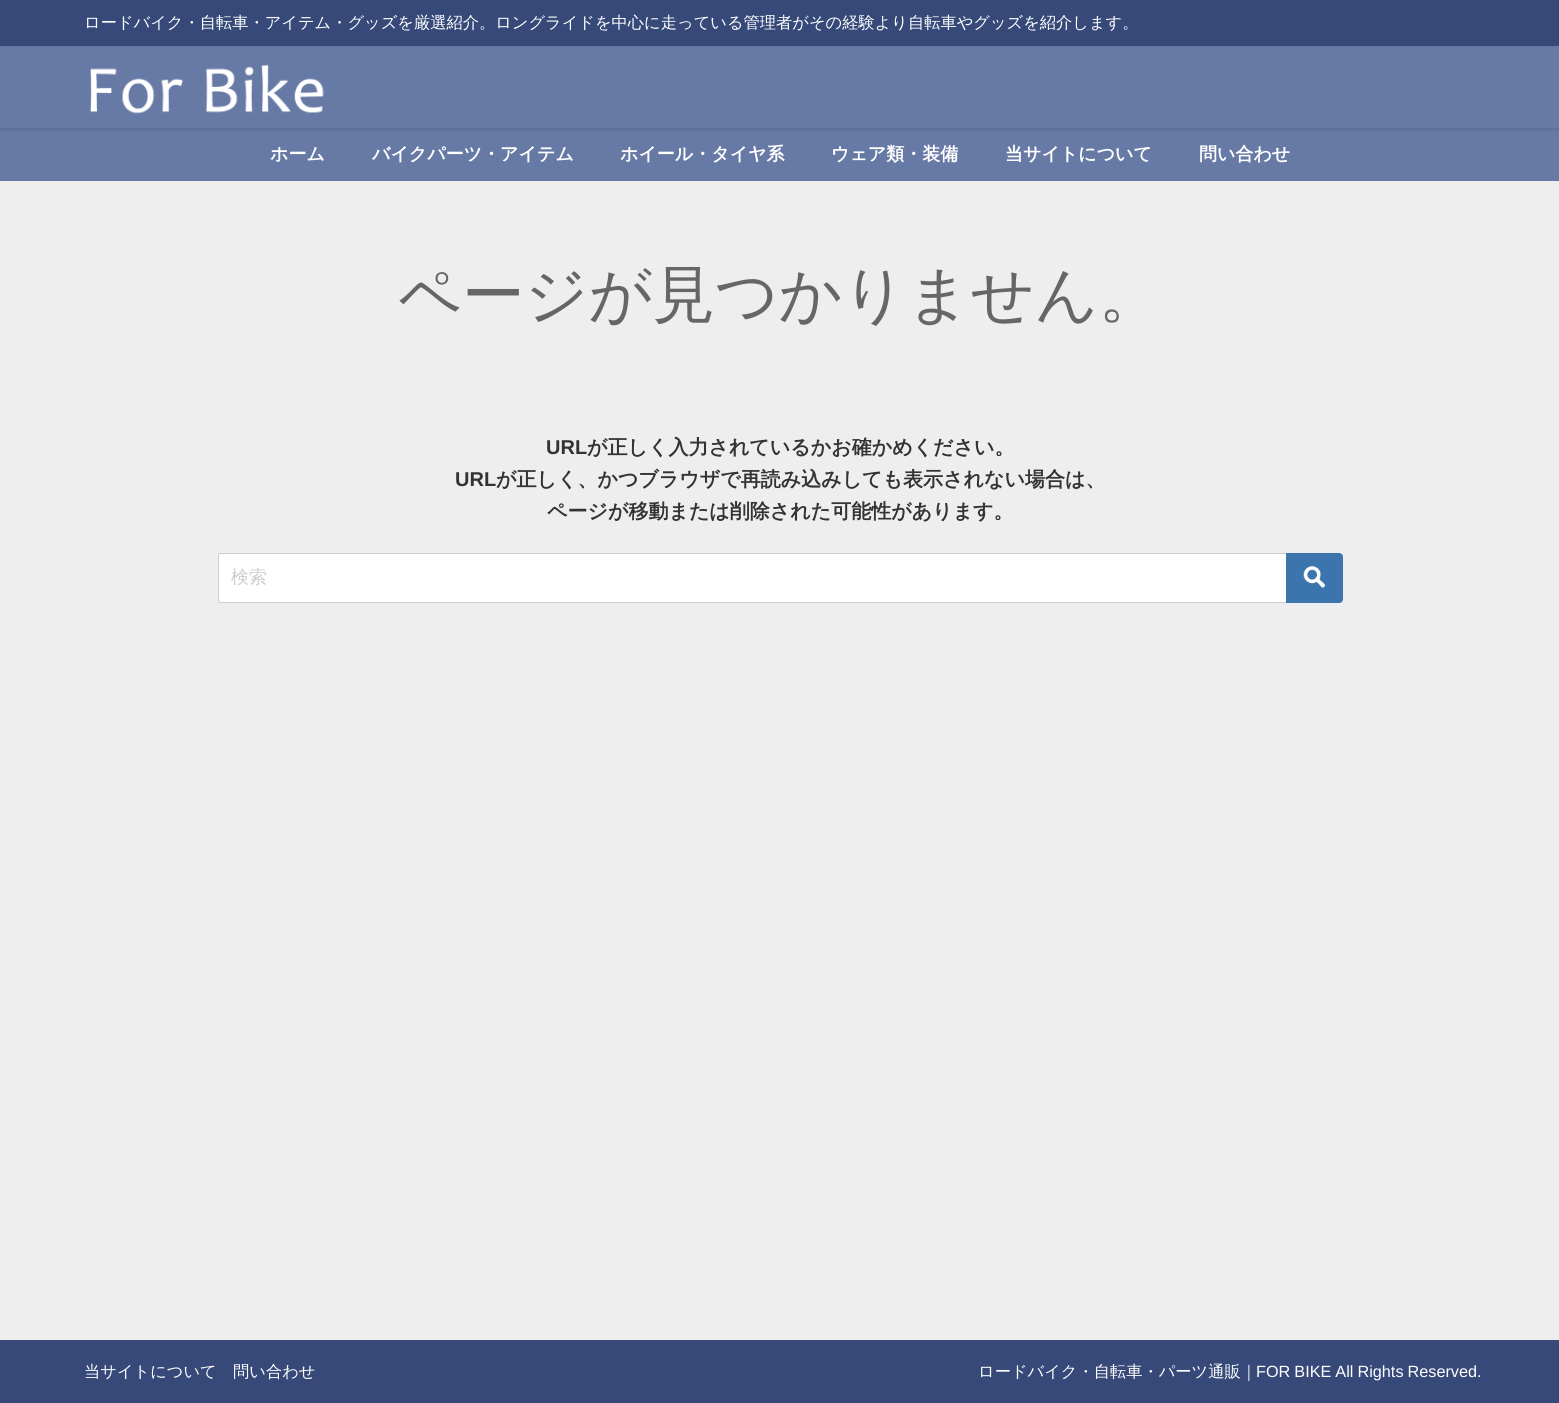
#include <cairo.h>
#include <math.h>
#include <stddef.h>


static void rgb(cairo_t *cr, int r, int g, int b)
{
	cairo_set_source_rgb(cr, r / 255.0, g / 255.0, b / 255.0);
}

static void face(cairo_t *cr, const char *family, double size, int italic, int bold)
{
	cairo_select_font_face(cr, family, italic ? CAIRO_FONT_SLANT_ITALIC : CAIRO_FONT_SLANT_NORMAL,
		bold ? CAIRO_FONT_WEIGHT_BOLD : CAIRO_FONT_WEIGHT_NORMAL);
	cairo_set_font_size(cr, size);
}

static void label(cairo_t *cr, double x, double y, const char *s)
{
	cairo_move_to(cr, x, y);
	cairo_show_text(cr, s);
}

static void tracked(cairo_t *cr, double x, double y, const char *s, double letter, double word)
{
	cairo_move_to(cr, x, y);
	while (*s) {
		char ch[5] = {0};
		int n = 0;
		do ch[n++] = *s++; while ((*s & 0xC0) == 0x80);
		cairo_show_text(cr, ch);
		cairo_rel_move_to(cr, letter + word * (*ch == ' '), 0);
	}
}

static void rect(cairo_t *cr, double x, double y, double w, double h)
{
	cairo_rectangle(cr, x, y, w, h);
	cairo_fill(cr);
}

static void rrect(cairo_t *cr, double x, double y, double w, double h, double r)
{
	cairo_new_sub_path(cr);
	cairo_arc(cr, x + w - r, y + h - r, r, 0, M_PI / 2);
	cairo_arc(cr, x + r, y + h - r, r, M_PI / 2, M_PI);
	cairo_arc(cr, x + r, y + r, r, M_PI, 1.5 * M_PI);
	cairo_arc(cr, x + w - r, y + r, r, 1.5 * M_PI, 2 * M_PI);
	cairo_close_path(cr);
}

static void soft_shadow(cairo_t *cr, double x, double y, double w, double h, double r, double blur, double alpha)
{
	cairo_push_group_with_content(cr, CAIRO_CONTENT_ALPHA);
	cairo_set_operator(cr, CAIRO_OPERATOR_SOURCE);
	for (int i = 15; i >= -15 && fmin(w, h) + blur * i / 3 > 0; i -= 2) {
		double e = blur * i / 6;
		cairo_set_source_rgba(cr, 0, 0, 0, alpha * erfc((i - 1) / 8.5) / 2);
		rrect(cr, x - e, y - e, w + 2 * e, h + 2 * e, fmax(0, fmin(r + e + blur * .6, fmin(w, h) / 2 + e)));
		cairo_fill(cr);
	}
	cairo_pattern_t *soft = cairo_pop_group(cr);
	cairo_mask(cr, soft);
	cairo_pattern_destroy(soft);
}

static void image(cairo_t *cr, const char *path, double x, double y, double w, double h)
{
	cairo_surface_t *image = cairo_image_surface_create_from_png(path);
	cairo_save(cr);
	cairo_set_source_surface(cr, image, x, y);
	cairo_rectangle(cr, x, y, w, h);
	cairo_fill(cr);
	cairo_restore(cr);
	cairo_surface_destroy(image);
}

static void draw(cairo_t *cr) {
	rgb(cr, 238, 238, 238);
	cairo_paint(cr);
	rgb(cr, 103, 121, 165);
	rect(cr, 0, 128, 1559, 53);
	rgb(cr, 0, 0, 0);
	soft_shadow(cr, 0, 0, 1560, 128, 0, 2.5, 0.2);
	rgb(cr, 103, 121, 165);
	rect(cr, 0, 46, 1559, 82);
	rgb(cr, 54, 73, 121);
	rect(cr, 0, 0, 1559, 46);
	face(cr, "WenQuanYi Zen Hei Medium", 16.25, 0, 0);
	rgb(cr, 255, 255, 255);
	label(cr, 84, 28, "ロードバイク・自転車・アイテム・グッズを厳選紹介。ロングライドを中心に走っている管理者がその経験より自転車やグッズを紹介します。");
	image(cr, "image0.png", 89, 64, 235, 50);
	face(cr, "WenQuanYi Zen Hei", 18, 0, 1);
	label(cr, 270, 160, "ホーム");
	label(cr, 372, 160, "バイクパーツ・アイテム");
	label(cr, 620, 160, "ホイール・タイヤ系");
	label(cr, 831, 160, "ウェア類・装備");
	label(cr, 1005, 160, "当サイトについて");
	label(cr, 1199, 160, "問い合わせ");
	face(cr, "WenQuanYi Zen Hei Medium", 62.5, 0, 0);
	rgb(cr, 102, 102, 102);
	label(cr, 398, 316, "ページが見つかりません。");
	face(cr, "Liberation Sans", 20, 0, 1);
	rgb(cr, 51, 51, 51);
	label(cr, 546, 454, "URL");
	face(cr, "WenQuanYi Zen Hei", 20, 0, 1);
	label(cr, 587, 454, "が正しく入力されているかお確かめください。");
	face(cr, "Liberation Sans", 20, 0, 1);
	label(cr, 455, 486, "URL");
	face(cr, "WenQuanYi Zen Hei", 20, 0, 1);
	label(cr, 496, 486, "が正しく、かつブラウザで再読み込みしても表示されない場合は、");
	label(cr, 547, 518, "ページが移動または削除された可能性があります。");
	rgb(cr, 255, 255, 255);
	rrect(cr, 218.5, 553.5, 1124, 49, 2);
	cairo_fill_preserve(cr);
	rgb(cr, 204, 204, 204);
	cairo_set_line_width(cr, 1);
	cairo_stroke(cr);
	face(cr, "WenQuanYi Zen Hei Medium", 18, 0, 0);
	label(cr, 231, 583, "検索");
	rgb(cr, 60, 116, 173);
	cairo_new_path(cr);
	cairo_move_to(cr, 1286, 553);
	cairo_line_to(cr, 1339, 553);
	cairo_curve_to(cr, 1341, 553, 1343, 555, 1343, 557);
	cairo_line_to(cr, 1343, 599);
	cairo_curve_to(cr, 1343, 601, 1341, 603, 1339, 603);
	cairo_line_to(cr, 1286, 603);
	cairo_close_path(cr);
	cairo_fill(cr);
	image(cr, "image1.png", 1303, 566, 22, 22);
	rgb(cr, 54, 73, 121);
	rect(cr, 0, 1340, 1559, 63);
	face(cr, "WenQuanYi Zen Hei Medium", 16.25, 0, 0);
	rgb(cr, 255, 255, 255);
	label(cr, 84, 1377, "当サイトについて");
	label(cr, 233, 1377, "問い合わせ");
	label(cr, 978, 1377, "ロードバイク・自転車・パーツ通販｜");
	face(cr, "Liberation Sans", 16.25, 0, 0);
	tracked(cr, 1256, 1377, "FOR BIKE All Rights Reserved.", 0, -0.5);
}

int main(void) {
	cairo_surface_t *surface = cairo_image_surface_create(CAIRO_FORMAT_RGB24, 1559, 1403);
	cairo_t *cr = cairo_create(surface);
	cairo_font_options_t *options = cairo_font_options_create();
	cairo_font_options_set_hint_metrics(options, CAIRO_HINT_METRICS_OFF);
	cairo_font_options_set_hint_style(options, CAIRO_HINT_STYLE_NONE);
	cairo_set_font_options(cr, options);
	cairo_set_miter_limit(cr, 4);
	draw(cr);
	cairo_surface_write_to_png(surface, "render.png");
	cairo_font_options_destroy(options);
	cairo_destroy(cr);
	cairo_surface_destroy(surface);
	return 0;
}
